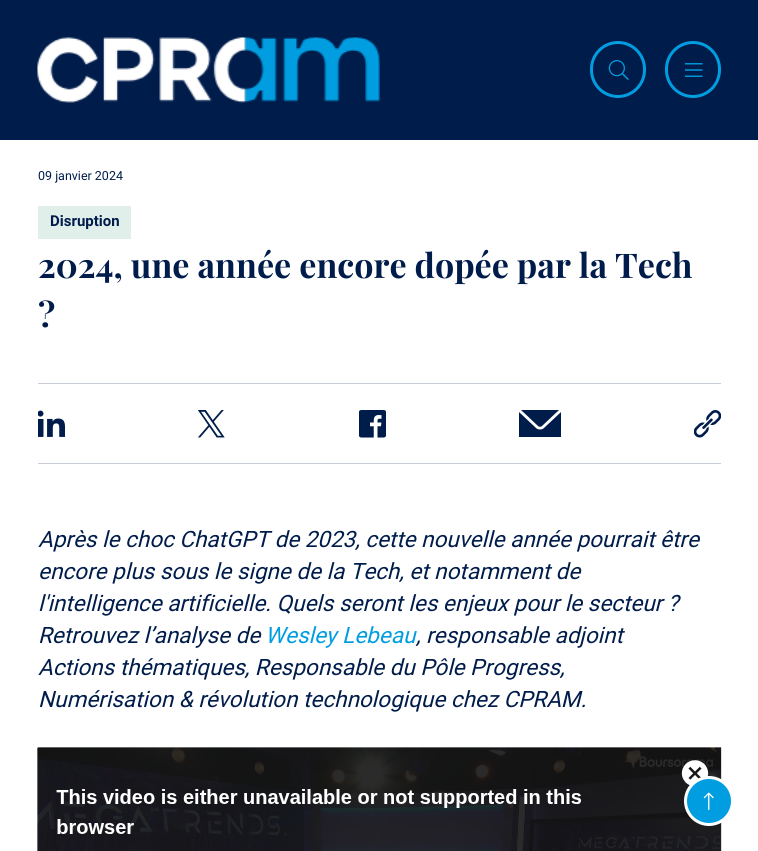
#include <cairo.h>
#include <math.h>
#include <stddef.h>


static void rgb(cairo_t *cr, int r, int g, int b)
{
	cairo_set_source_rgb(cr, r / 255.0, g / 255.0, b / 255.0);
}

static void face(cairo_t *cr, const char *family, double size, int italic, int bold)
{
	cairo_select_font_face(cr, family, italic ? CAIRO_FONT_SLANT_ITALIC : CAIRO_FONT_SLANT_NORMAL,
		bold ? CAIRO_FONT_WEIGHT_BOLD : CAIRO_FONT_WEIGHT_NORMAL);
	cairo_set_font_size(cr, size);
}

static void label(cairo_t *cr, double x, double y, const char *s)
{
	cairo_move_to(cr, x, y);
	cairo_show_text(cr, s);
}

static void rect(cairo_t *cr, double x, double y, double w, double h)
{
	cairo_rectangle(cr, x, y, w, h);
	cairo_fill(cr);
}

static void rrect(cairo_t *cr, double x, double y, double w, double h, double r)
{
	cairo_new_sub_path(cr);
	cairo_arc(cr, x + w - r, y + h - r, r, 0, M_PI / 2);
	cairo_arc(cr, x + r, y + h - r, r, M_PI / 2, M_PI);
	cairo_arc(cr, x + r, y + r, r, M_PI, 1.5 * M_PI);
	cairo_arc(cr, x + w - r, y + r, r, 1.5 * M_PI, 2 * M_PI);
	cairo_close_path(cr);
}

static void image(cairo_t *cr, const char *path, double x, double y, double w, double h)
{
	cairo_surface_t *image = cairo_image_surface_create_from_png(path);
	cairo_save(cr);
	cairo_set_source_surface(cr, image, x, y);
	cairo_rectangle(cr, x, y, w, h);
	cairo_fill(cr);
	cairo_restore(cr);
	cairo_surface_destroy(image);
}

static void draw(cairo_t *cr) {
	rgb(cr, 255, 255, 255);
	cairo_paint(cr);
	rgb(cr, 0, 28, 75);
	rect(cr, 0, 0, 758, 140);
	image(cr, "image0.png", 37, 37, 343, 66);
	rrect(cr, 591.5, 42.5, 53, 54, 26.5);
	rgb(cr, 0, 158, 224);
	cairo_set_line_width(cr, 3);
	cairo_stroke(cr);
	image(cr, "image1.png", 608, 60, 21, 20);
	rrect(cr, 666.5, 42.5, 53, 54, 26.5);
	cairo_stroke(cr);
	image(cr, "image2.png", 685, 63, 18, 14);
	face(cr, "Roboto", 12.5, 0, 0);
	rgb(cr, 0, 28, 75);
	label(cr, 38, 180, "09 janvier 2024");
	rgb(cr, 225, 239, 235);
	rect(cr, 38, 206, 93, 33);
	face(cr, "Roboto", 15, 0, 1);
	rgb(cr, 0, 28, 75);
	label(cr, 50, 226, "Disruption");
	face(cr, "Playfair Display", 42.25, 0, 1);
	label(cr, 38, 278, "2024, une année encore dopée par la Tech");
	label(cr, 38, 327, "?");
	rgb(cr, 201, 207, 217);
	rect(cr, 38, 383, 683, 1);
	rect(cr, 38, 463, 683, 1);
	image(cr, "image3.png", 38, 410, 27, 27);
	image(cr, "image4.png", 198, 410, 27, 28);
	image(cr, "image5.png", 359, 410, 27, 28);
	rgb(cr, 0, 28, 75);
	cairo_new_path(cr);
	cairo_move_to(cr, 521, 410);
	cairo_line_to(cr, 538, 426);
	cairo_curve_to(cr, 539, 427, 541, 427, 542, 426);
	cairo_line_to(cr, 559, 410);
	cairo_close_path(cr);
	cairo_move_to(cr, 519, 412);
	cairo_line_to(cr, 519, 437);
	cairo_line_to(cr, 561, 437);
	cairo_line_to(cr, 561, 412);
	cairo_line_to(cr, 544, 428);
	cairo_curve_to(cr, 542, 430, 538, 430, 536, 428);
	cairo_close_path(cr);
	cairo_fill(cr);
	image(cr, "image6.png", 694, 410, 27, 28);
	face(cr, "Roboto", 22.5, 1, 0);
	label(cr, 38, 547, "Après le choc ChatGPT de 2023, cette nouvelle année pourrait être");
	label(cr, 38, 579, "encore plus sous le signe de la Tech, et notamment de");
	label(cr, 38, 611, "l'intelligence artificielle. Quels seront les enjeux pour le secteur ?");
	label(cr, 38, 643, "Retrouvez l’analyse de");
	rgb(cr, 0, 158, 224);
	label(cr, 265, 643, "Wesley Lebeau");
	rgb(cr, 0, 28, 75);
	label(cr, 416, 643, ", responsable adjoint");
	label(cr, 38, 675, "Actions thématiques, Responsable du Pôle Progress,");
	label(cr, 38, 707, "Numérisation & révolution technologique chez CPRAM.");
	image(cr, "image7.png", 37, 747, 685, 104);
	rgb(cr, 0, 158, 224);
	cairo_arc(cr, 709, 801, 23.5, 0, 2 * M_PI);
	cairo_fill_preserve(cr);
	rgb(cr, 255, 255, 255);
	cairo_stroke(cr);
	image(cr, "image8.png", 703, 792, 11, 18);
}

int main(void) {
	cairo_surface_t *surface = cairo_image_surface_create(CAIRO_FORMAT_RGB24, 758, 851);
	cairo_t *cr = cairo_create(surface);
	cairo_font_options_t *options = cairo_font_options_create();
	cairo_font_options_set_hint_metrics(options, CAIRO_HINT_METRICS_OFF);
	cairo_font_options_set_hint_style(options, CAIRO_HINT_STYLE_NONE);
	cairo_set_font_options(cr, options);
	cairo_set_miter_limit(cr, 4);
	draw(cr);
	cairo_surface_write_to_png(surface, "render.png");
	cairo_font_options_destroy(options);
	cairo_destroy(cr);
	cairo_surface_destroy(surface);
	return 0;
}
